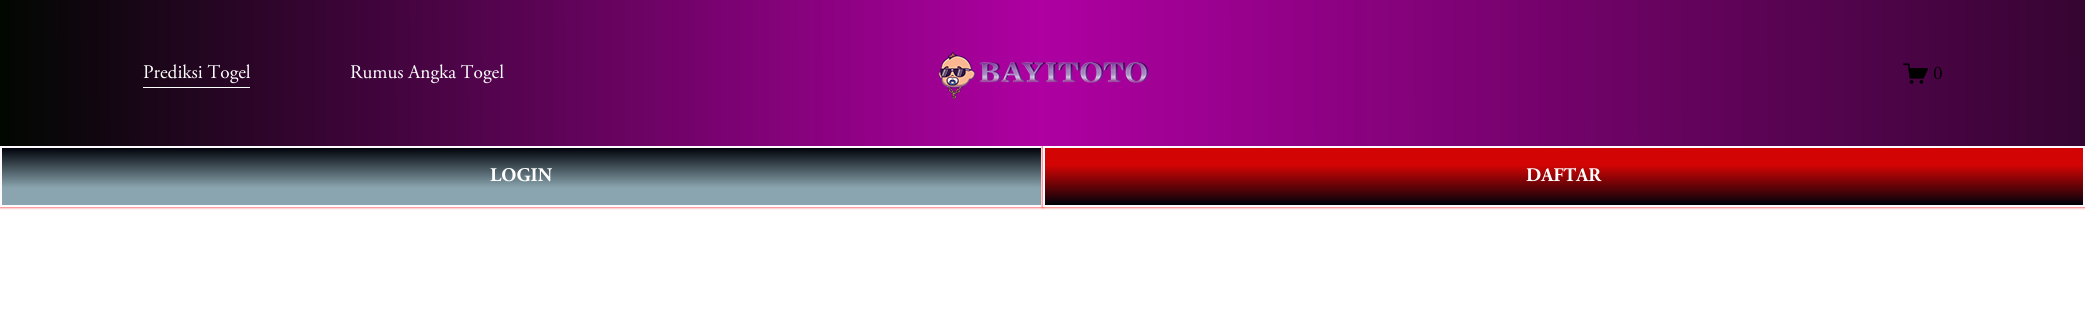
#include <cairo.h>
#include <math.h>
#include <stddef.h>


static void rgb(cairo_t *cr, int r, int g, int b)
{
	cairo_set_source_rgb(cr, r / 255.0, g / 255.0, b / 255.0);
}

static void face(cairo_t *cr, const char *family, double size, int italic, int bold)
{
	cairo_select_font_face(cr, family, italic ? CAIRO_FONT_SLANT_ITALIC : CAIRO_FONT_SLANT_NORMAL,
		bold ? CAIRO_FONT_WEIGHT_BOLD : CAIRO_FONT_WEIGHT_NORMAL);
	cairo_set_font_size(cr, size);
}

static void label(cairo_t *cr, double x, double y, const char *s)
{
	cairo_move_to(cr, x, y);
	cairo_show_text(cr, s);
}

static void rect(cairo_t *cr, double x, double y, double w, double h)
{
	cairo_rectangle(cr, x, y, w, h);
	cairo_fill(cr);
}

static void rrect(cairo_t *cr, double x, double y, double w, double h, double r)
{
	cairo_new_sub_path(cr);
	cairo_arc(cr, x + w - r, y + h - r, r, 0, M_PI / 2);
	cairo_arc(cr, x + r, y + h - r, r, M_PI / 2, M_PI);
	cairo_arc(cr, x + r, y + r, r, M_PI, 1.5 * M_PI);
	cairo_arc(cr, x + w - r, y + r, r, 1.5 * M_PI, 2 * M_PI);
	cairo_close_path(cr);
}

static void soft_shadow(cairo_t *cr, double x, double y, double w, double h, double r, double blur, double alpha)
{
	cairo_push_group_with_content(cr, CAIRO_CONTENT_ALPHA);
	cairo_set_operator(cr, CAIRO_OPERATOR_SOURCE);
	for (int i = 15; i >= -15 && fmin(w, h) + blur * i / 3 > 0; i -= 2) {
		double e = blur * i / 6;
		cairo_set_source_rgba(cr, 0, 0, 0, alpha * erfc((i - 1) / 8.5) / 2);
		rrect(cr, x - e, y - e, w + 2 * e, h + 2 * e, fmax(0, fmin(r + e + blur * .6, fmin(w, h) / 2 + e)));
		cairo_fill(cr);
	}
	cairo_pattern_t *soft = cairo_pop_group(cr);
	cairo_mask(cr, soft);
	cairo_pattern_destroy(soft);
}

static void image(cairo_t *cr, const char *path, double x, double y, double w, double h)
{
	cairo_surface_t *image = cairo_image_surface_create_from_png(path);
	cairo_save(cr);
	cairo_set_source_surface(cr, image, x, y);
	cairo_rectangle(cr, x, y, w, h);
	cairo_fill(cr);
	cairo_restore(cr);
	cairo_surface_destroy(image);
}

static void draw(cairo_t *cr) {
	cairo_pattern_t *gradient;
	rgb(cr, 255, 255, 255);
	cairo_paint(cr);
	rgb(cr, 255, 0, 0);
	soft_shadow(cr, 0, 146, 1043, 61, 0, 1.5, 1);
	gradient = cairo_pattern_create_linear(522, 148, 522, 205);
	cairo_pattern_add_color_stop_rgba(gradient, 0, 0, 0.008, 0.039, 1);
	cairo_pattern_add_color_stop_rgba(gradient, 0.7, 0.541, 0.647, 0.686, 1);
	cairo_set_source(cr, gradient);
	cairo_pattern_destroy(gradient);
	rect(cr, 2, 148, 1039, 57);
	cairo_rectangle(cr, 1, 147, 1041, 59);
	rgb(cr, 255, 250, 255);
	cairo_stroke(cr);
	rgb(cr, 255, 0, 0);
	soft_shadow(cr, 1043, 146, 1042, 61, 0, 1.5, 1);
	gradient = cairo_pattern_create_linear(-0.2, 75, 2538, 70);
	cairo_pattern_add_color_stop_rgba(gradient, 0, 0.004, 0.027, 0.004, 1);
	cairo_pattern_add_color_stop_rgba(gradient, 0.41, 0.686, 0, 0.635, 1);
	cairo_pattern_add_color_stop_rgba(gradient, 1, 0.004, 0.027, 0.004, 1);
	cairo_set_source(cr, gradient);
	cairo_pattern_destroy(gradient);
	rect(cr, 0, 0, 2085, 146);
	rgb(cr, 255, 255, 255);
	rect(cr, 143, 87, 107, 1);
	face(cr, "Adobe Garamond", 19.25, 0, 0);
	label(cr, 143, 78, "Prediksi Togel");
	label(cr, 350, 78, "Rumus Angka Togel");
	image(cr, "image0.png", 939, 52, 210, 47);
	image(cr, "image1.png", 1903, 63, 25, 21);
	rgb(cr, 0, 0, 0);
	label(cr, 1933, 79, "0");
	face(cr, "Adobe Garamond", 19.25, 0, 1);
	rgb(cr, 255, 255, 255);
	label(cr, 490, 181, "LOGIN");
	gradient = cairo_pattern_create_linear(1564, 205, 1564, 148);
	cairo_pattern_add_color_stop_rgba(gradient, 0, 0, 0.008, 0.039, 1);
	cairo_pattern_add_color_stop_rgba(gradient, 0.7, 0.827, 0.016, 0.016, 1);
	cairo_set_source(cr, gradient);
	cairo_pattern_destroy(gradient);
	rect(cr, 1045, 148, 1038, 57);
	cairo_rectangle(cr, 1044, 147, 1040, 59);
	rgb(cr, 255, 250, 255);
	cairo_stroke(cr);
	rgb(cr, 255, 255, 255);
	label(cr, 1526, 181, "DAFTAR");
}

int main(void) {
	cairo_surface_t *surface = cairo_image_surface_create(CAIRO_FORMAT_RGB24, 2085, 323);
	cairo_t *cr = cairo_create(surface);
	cairo_font_options_t *options = cairo_font_options_create();
	cairo_font_options_set_hint_metrics(options, CAIRO_HINT_METRICS_OFF);
	cairo_font_options_set_hint_style(options, CAIRO_HINT_STYLE_NONE);
	cairo_set_font_options(cr, options);
	cairo_set_miter_limit(cr, 4);
	draw(cr);
	cairo_surface_write_to_png(surface, "render.png");
	cairo_font_options_destroy(options);
	cairo_destroy(cr);
	cairo_surface_destroy(surface);
	return 0;
}
